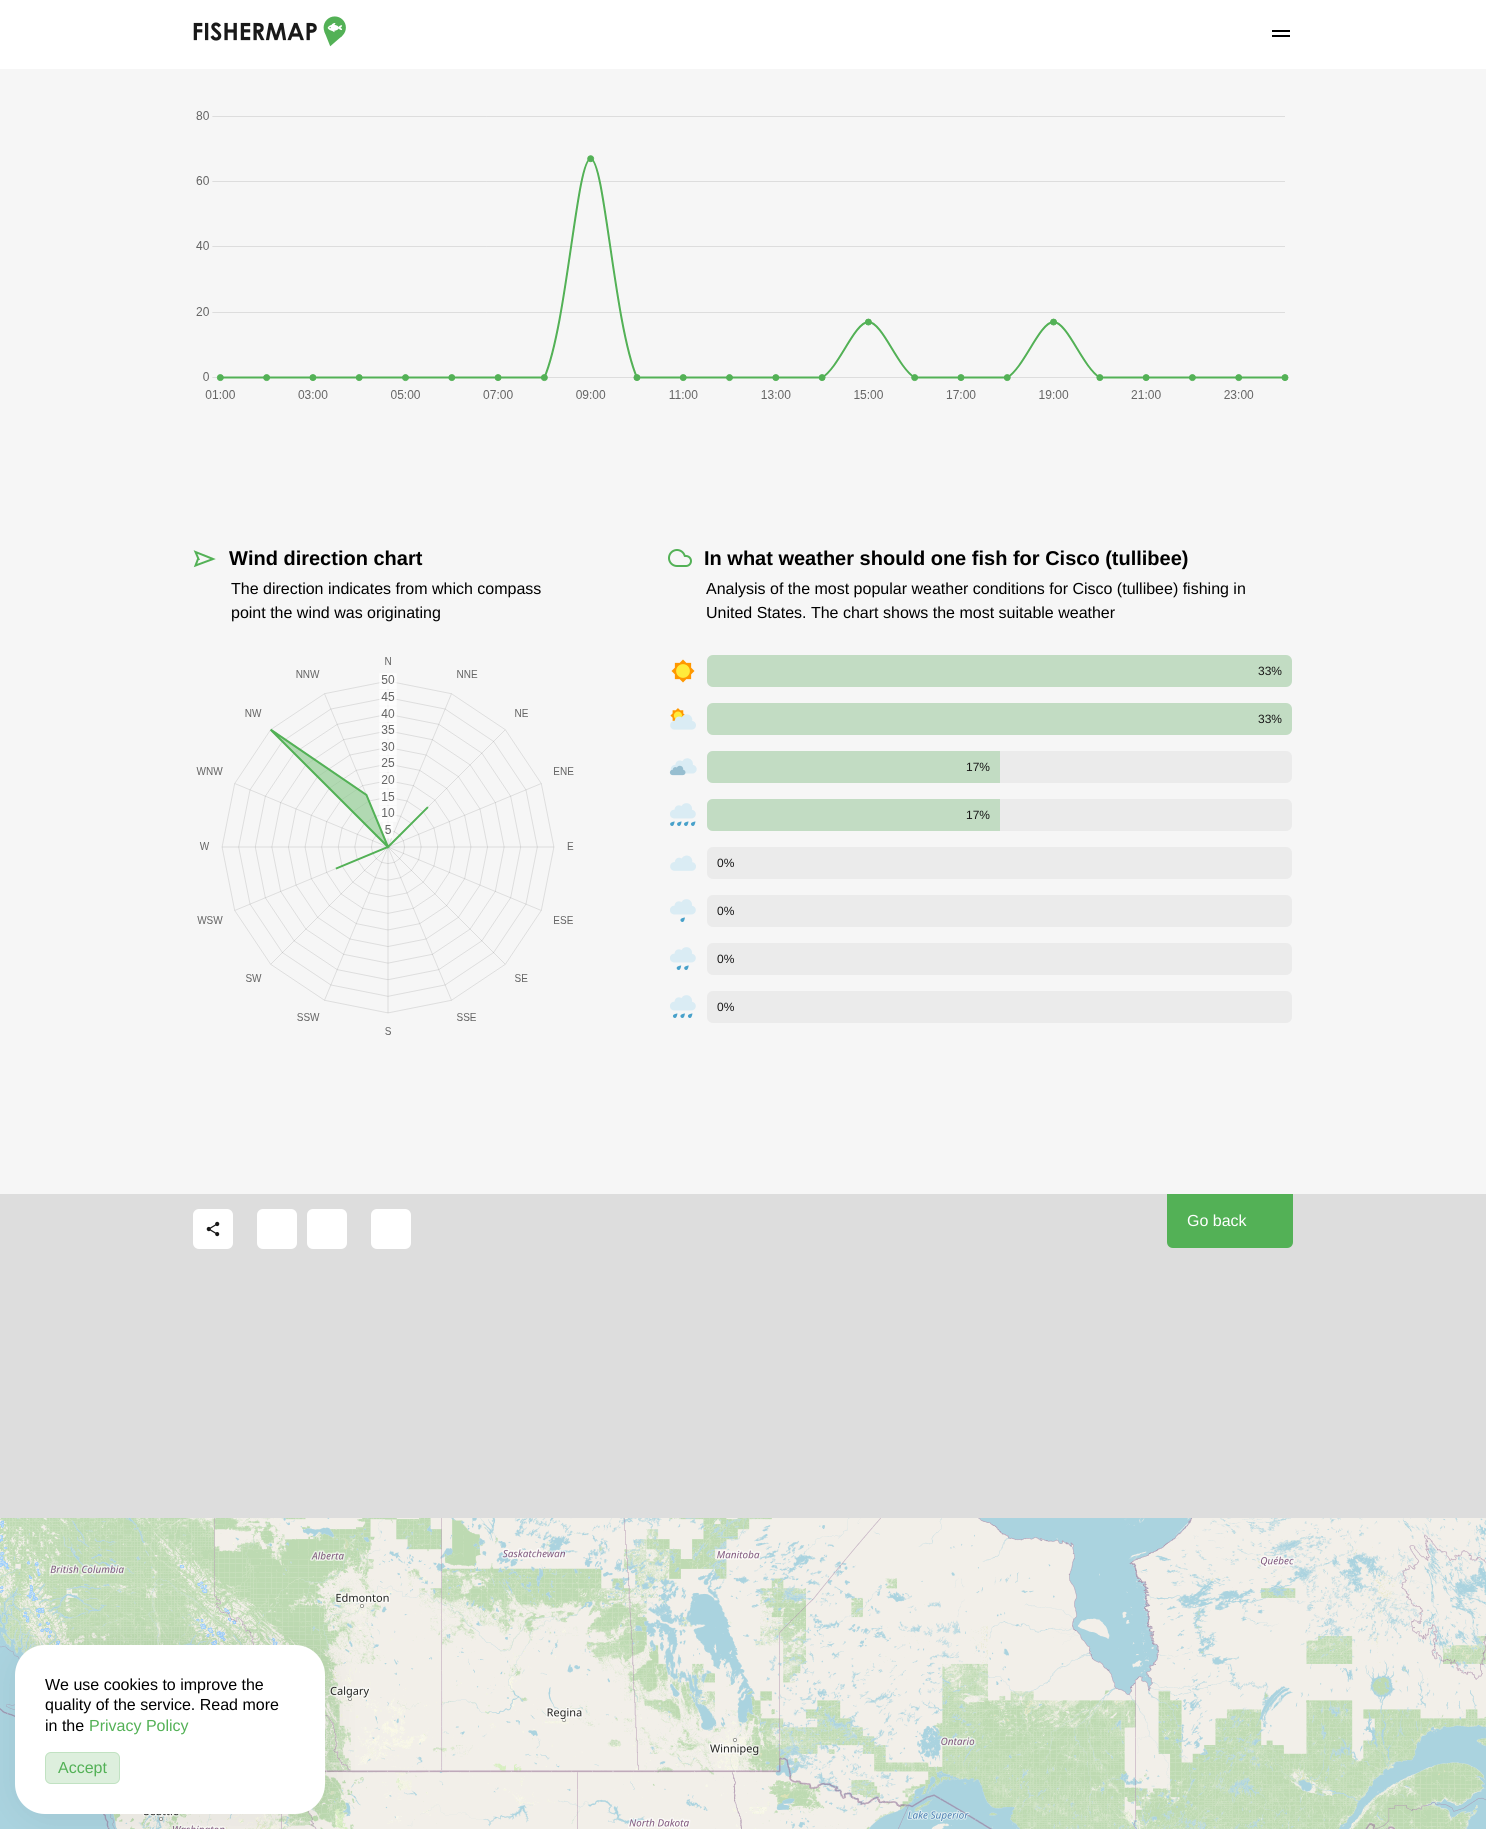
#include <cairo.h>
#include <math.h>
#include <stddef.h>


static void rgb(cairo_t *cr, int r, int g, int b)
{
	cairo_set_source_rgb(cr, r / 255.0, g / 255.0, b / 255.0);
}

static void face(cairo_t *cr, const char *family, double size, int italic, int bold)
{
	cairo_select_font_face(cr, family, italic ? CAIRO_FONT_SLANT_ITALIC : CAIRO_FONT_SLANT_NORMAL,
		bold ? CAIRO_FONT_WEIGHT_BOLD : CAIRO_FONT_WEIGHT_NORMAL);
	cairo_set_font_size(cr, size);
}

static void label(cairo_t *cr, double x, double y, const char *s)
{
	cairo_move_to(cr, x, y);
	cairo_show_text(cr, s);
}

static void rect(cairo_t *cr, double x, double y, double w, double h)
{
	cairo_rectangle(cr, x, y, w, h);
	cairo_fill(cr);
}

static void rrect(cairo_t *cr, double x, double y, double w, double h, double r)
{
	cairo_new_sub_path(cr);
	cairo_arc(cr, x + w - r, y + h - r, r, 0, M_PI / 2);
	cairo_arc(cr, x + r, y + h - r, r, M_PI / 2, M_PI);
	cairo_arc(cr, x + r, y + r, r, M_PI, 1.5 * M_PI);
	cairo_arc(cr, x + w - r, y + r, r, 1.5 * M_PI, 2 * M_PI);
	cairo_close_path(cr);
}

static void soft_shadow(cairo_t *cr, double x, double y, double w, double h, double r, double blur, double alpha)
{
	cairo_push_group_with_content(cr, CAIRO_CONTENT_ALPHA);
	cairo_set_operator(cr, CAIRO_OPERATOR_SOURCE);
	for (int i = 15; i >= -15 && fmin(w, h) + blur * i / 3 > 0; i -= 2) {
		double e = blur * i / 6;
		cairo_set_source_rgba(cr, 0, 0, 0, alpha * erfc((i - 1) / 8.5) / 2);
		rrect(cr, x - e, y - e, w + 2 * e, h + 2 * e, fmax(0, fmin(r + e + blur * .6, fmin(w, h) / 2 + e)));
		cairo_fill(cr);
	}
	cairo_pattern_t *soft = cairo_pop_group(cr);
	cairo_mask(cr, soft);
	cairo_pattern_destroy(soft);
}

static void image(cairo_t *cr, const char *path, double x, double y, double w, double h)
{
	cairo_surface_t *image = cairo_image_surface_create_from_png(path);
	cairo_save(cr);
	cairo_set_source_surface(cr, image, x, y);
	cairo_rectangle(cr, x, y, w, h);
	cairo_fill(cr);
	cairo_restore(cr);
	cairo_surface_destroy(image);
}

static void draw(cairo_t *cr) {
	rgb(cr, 246, 246, 246);
	cairo_paint(cr);
	rgb(cr, 255, 255, 255);
	rect(cr, 0, 0, 1486, 69);
	image(cr, "image0.png", 193, 16, 153, 31);
	rgb(cr, 0, 0, 0);
	rect(cr, 1272, 30, 18, 2);
	rect(cr, 1272, 35, 18, 2);
	image(cr, "image1.png", 196, 111, 1093, 288);
	cairo_new_path(cr);
	cairo_move_to(cr, 198, 559);
	cairo_line_to(cr, 195.5, 565.5);
	cairo_line_to(cr, 213, 559);
	cairo_line_to(cr, 195.5, 552);
	cairo_line_to(cr, 198.5, 559);
	cairo_close_path(cr);
	rgb(cr, 83, 177, 86);
	cairo_stroke(cr);
	face(cr, "Liberation Sans", 20, 0, 1);
	rgb(cr, 0, 0, 0);
	label(cr, 229, 565, "Wind direction chart");
	face(cr, "Liberation Sans", 16, 0, 0);
	label(cr, 231, 594, "The direction indicates from which compass");
	label(cr, 231, 618, "point the wind was originating");
	image(cr, "image2.png", 196, 657, 378, 378);
	image(cr, "image3.png", 668, 549, 24, 18);
	face(cr, "Liberation Sans", 20, 0, 1);
	label(cr, 704, 565, "In what weather should one fish for Cisco (tullibee)");
	face(cr, "Liberation Sans", 16, 0, 0);
	label(cr, 706, 594, "Analysis of the most popular weather conditions for Cisco (tullibee) fishing in");
	label(cr, 706, 618, "United States. The chart shows the most suitable weather");
	image(cr, "image4.png", 671, 659, 24, 24);
	rgb(cr, 194, 220, 195);
	rrect(cr, 707, 655, 585, 32, 6);
	cairo_fill(cr);
	face(cr, "Liberation Sans", 12, 0, 0);
	rgb(cr, 24, 24, 24);
	label(cr, 1258, 675, "33%");
	image(cr, "image5.png", 670, 708, 26, 22);
	rgb(cr, 194, 220, 195);
	rrect(cr, 707, 703, 585, 32, 6);
	cairo_fill(cr);
	rgb(cr, 24, 24, 24);
	label(cr, 1258, 723, "33%");
	image(cr, "image6.png", 669, 758, 28, 18);
	rgb(cr, 235, 235, 235);
	rrect(cr, 707, 751, 585, 32, 6);
	cairo_fill(cr);
	rgb(cr, 194, 220, 195);
	cairo_new_path(cr);
	cairo_move_to(cr, 713, 751);
	cairo_line_to(cr, 1000, 751);
	cairo_line_to(cr, 1000, 783);
	cairo_line_to(cr, 713, 783);
	cairo_curve_to(cr, 709.5, 783, 707, 780.5, 707, 777);
	cairo_line_to(cr, 707, 757);
	cairo_curve_to(cr, 707, 753.5, 709.5, 751, 713, 751);
	cairo_close_path(cr);
	cairo_fill(cr);
	rgb(cr, 24, 24, 24);
	label(cr, 966, 771, "17%");
	image(cr, "image7.png", 670, 803, 26, 23);
	rgb(cr, 235, 235, 235);
	rrect(cr, 707, 799, 585, 32, 6);
	cairo_fill(cr);
	rgb(cr, 194, 220, 195);
	cairo_new_path(cr);
	cairo_move_to(cr, 713, 799);
	cairo_line_to(cr, 1000, 799);
	cairo_line_to(cr, 1000, 831);
	cairo_line_to(cr, 713, 831);
	cairo_curve_to(cr, 709.5, 831, 707, 828.5, 707, 825);
	cairo_line_to(cr, 707, 805);
	cairo_curve_to(cr, 707, 801.5, 709.5, 799, 713, 799);
	cairo_close_path(cr);
	cairo_fill(cr);
	rgb(cr, 24, 24, 24);
	label(cr, 966, 819, "17%");
	image(cr, "image8.png", 670, 855, 26, 16);
	rgb(cr, 235, 235, 235);
	rrect(cr, 707, 847, 585, 32, 6);
	cairo_fill(cr);
	rgb(cr, 24, 24, 24);
	label(cr, 717, 867, "0%");
	image(cr, "image9.png", 670, 899, 26, 23);
	rgb(cr, 235, 235, 235);
	rrect(cr, 707, 895, 585, 32, 6);
	cairo_fill(cr);
	rgb(cr, 24, 24, 24);
	label(cr, 717, 915, "0%");
	image(cr, "image10.png", 670, 947, 26, 23);
	rgb(cr, 235, 235, 235);
	rrect(cr, 707, 943, 585, 32, 6);
	cairo_fill(cr);
	rgb(cr, 24, 24, 24);
	label(cr, 717, 963, "0%");
	image(cr, "image11.png", 670, 995, 26, 23);
	rgb(cr, 235, 235, 235);
	rrect(cr, 707, 991, 585, 32, 6);
	cairo_fill(cr);
	rgb(cr, 24, 24, 24);
	label(cr, 717, 1011, "0%");
	rgb(cr, 221, 221, 221);
	rect(cr, 0, 1194, 1486, 324);
	rgb(cr, 255, 255, 255);
	rrect(cr, 193, 1209, 40, 40, 6);
	cairo_fill(cr);
	image(cr, "image12.png", 206, 1221, 14, 16);
	rrect(cr, 257, 1209, 40, 40, 6);
	cairo_fill(cr);
	rrect(cr, 307, 1209, 40, 40, 6);
	cairo_fill(cr);
	rrect(cr, 371, 1209, 40, 40, 6);
	cairo_fill(cr);
	rgb(cr, 83, 177, 86);
	cairo_new_path(cr);
	cairo_move_to(cr, 1167, 1194);
	cairo_line_to(cr, 1293, 1194);
	cairo_line_to(cr, 1293, 1242);
	cairo_curve_to(cr, 1293, 1245.5, 1290.5, 1248, 1287, 1248);
	cairo_line_to(cr, 1173, 1248);
	cairo_curve_to(cr, 1169.5, 1248, 1167, 1245.5, 1167, 1242);
	cairo_close_path(cr);
	cairo_fill(cr);
	face(cr, "Liberation Sans", 16, 0, 0);
	rgb(cr, 255, 255, 255);
	label(cr, 1187, 1226, "Go back");
	image(cr, "image13.png", 0, 1518, 129, 256);
	image(cr, "image14.png", 129, 1518, 256, 256);
	image(cr, "image15.png", 385, 1518, 256, 256);
	image(cr, "image16.png", 641, 1518, 256, 256);
	image(cr, "image17.png", 897, 1518, 256, 256);
	image(cr, "image18.png", 1153, 1518, 256, 256);
	image(cr, "image19.png", 1409, 1518, 77, 256);
	image(cr, "image20.png", 0, 1774, 129, 55);
	image(cr, "image21.png", 129, 1774, 256, 55);
	image(cr, "image22.png", 385, 1774, 256, 55);
	image(cr, "image23.png", 641, 1774, 256, 55);
	image(cr, "image24.png", 897, 1774, 256, 55);
	image(cr, "image25.png", 1153, 1774, 256, 55);
	image(cr, "image26.png", 1409, 1774, 77, 55);
	rgb(cr, 1, 1, 1);
	soft_shadow(cr, 18, 1648, 310, 169, 30, 18, 0.07);
	rgb(cr, 255, 255, 255);
	rrect(cr, 15, 1645, 310, 169, 30);
	cairo_fill(cr);
	rgb(cr, 0, 0, 0);
	label(cr, 45, 1690, "We use cookies to improve the");
	label(cr, 45, 1710, "quality of the service. Read more");
	label(cr, 45, 1731, "in the");
	rgb(cr, 83, 177, 86);
	label(cr, 89, 1731, "Privacy Policy");
	rgb(cr, 221, 239, 221);
	rrect(cr, 45, 1752, 75, 32, 6);
	cairo_fill(cr);
	rrect(cr, 45.5, 1752.5, 74, 31, 5.5);
	cairo_set_source_rgba(cr, 0.325, 0.694, 0.337, 0.2);
	cairo_set_line_width(cr, 1);
	cairo_stroke(cr);
	rgb(cr, 83, 177, 86);
	label(cr, 58, 1773, "Accept");
}

int main(void) {
	cairo_surface_t *surface = cairo_image_surface_create(CAIRO_FORMAT_RGB24, 1486, 1829);
	cairo_t *cr = cairo_create(surface);
	cairo_font_options_t *options = cairo_font_options_create();
	cairo_font_options_set_hint_metrics(options, CAIRO_HINT_METRICS_OFF);
	cairo_font_options_set_hint_style(options, CAIRO_HINT_STYLE_NONE);
	cairo_set_font_options(cr, options);
	cairo_set_miter_limit(cr, 4);
	draw(cr);
	cairo_surface_write_to_png(surface, "render.png");
	cairo_font_options_destroy(options);
	cairo_destroy(cr);
	cairo_surface_destroy(surface);
	return 0;
}
